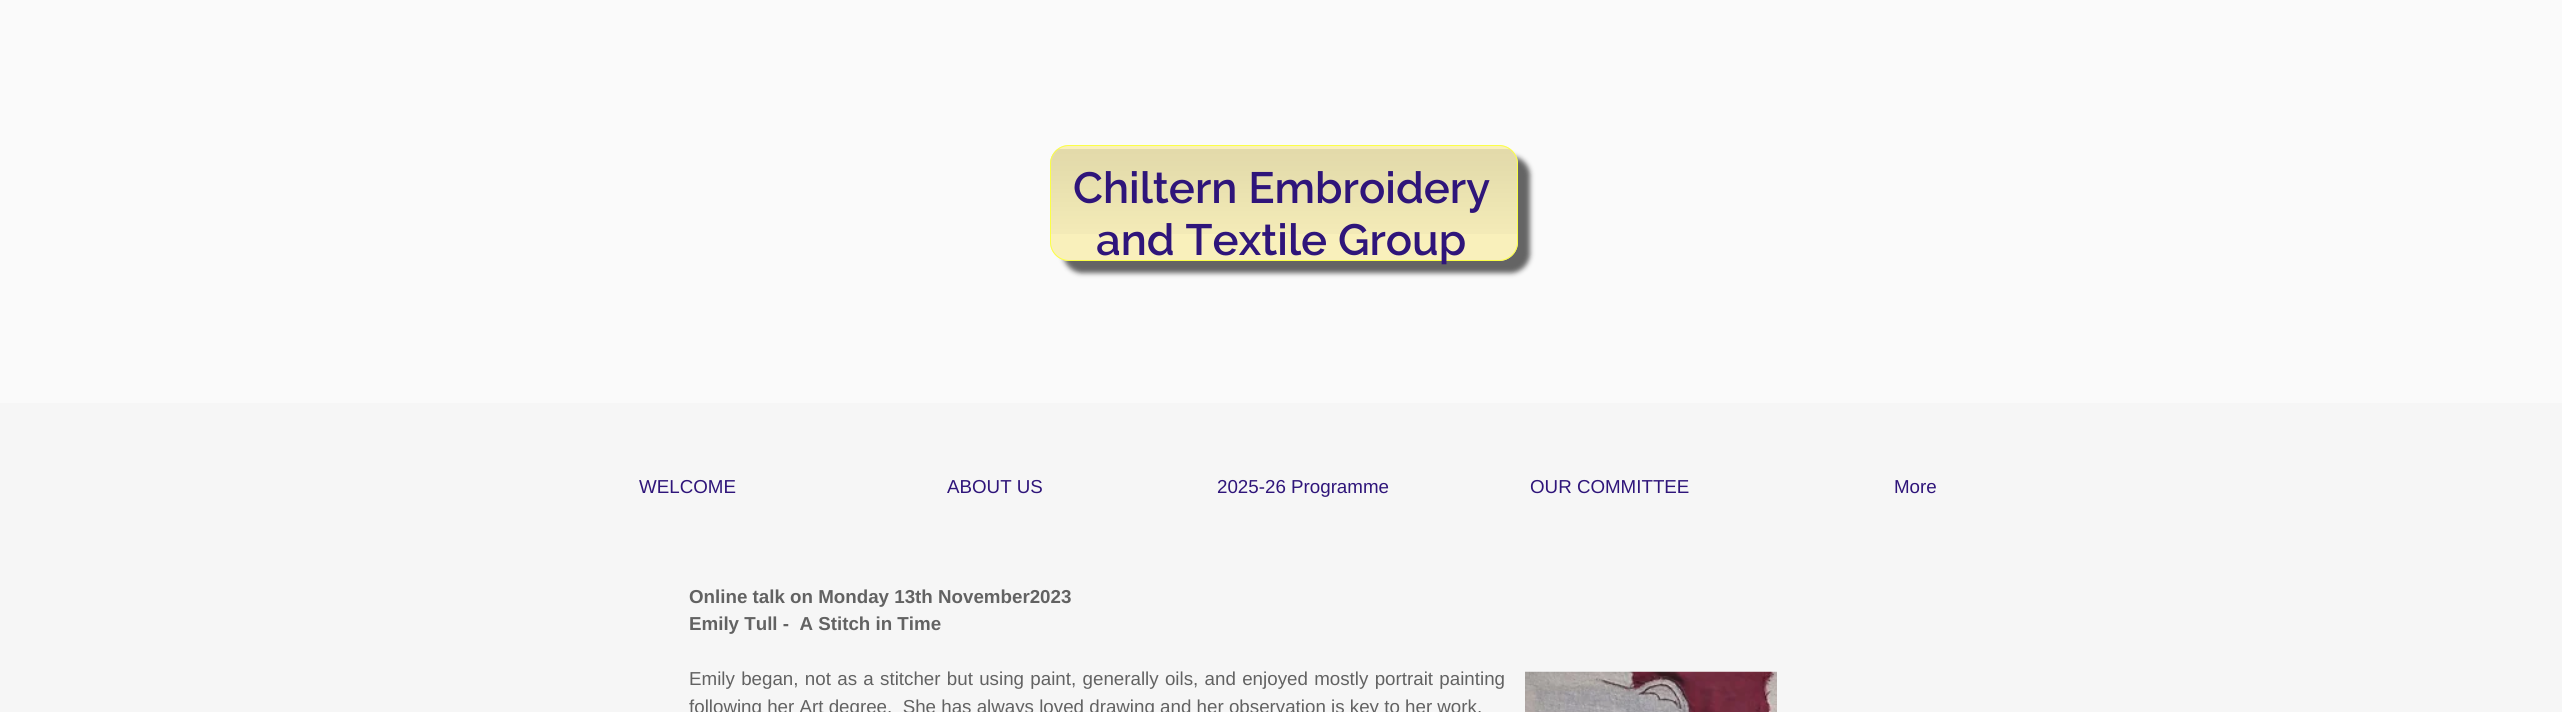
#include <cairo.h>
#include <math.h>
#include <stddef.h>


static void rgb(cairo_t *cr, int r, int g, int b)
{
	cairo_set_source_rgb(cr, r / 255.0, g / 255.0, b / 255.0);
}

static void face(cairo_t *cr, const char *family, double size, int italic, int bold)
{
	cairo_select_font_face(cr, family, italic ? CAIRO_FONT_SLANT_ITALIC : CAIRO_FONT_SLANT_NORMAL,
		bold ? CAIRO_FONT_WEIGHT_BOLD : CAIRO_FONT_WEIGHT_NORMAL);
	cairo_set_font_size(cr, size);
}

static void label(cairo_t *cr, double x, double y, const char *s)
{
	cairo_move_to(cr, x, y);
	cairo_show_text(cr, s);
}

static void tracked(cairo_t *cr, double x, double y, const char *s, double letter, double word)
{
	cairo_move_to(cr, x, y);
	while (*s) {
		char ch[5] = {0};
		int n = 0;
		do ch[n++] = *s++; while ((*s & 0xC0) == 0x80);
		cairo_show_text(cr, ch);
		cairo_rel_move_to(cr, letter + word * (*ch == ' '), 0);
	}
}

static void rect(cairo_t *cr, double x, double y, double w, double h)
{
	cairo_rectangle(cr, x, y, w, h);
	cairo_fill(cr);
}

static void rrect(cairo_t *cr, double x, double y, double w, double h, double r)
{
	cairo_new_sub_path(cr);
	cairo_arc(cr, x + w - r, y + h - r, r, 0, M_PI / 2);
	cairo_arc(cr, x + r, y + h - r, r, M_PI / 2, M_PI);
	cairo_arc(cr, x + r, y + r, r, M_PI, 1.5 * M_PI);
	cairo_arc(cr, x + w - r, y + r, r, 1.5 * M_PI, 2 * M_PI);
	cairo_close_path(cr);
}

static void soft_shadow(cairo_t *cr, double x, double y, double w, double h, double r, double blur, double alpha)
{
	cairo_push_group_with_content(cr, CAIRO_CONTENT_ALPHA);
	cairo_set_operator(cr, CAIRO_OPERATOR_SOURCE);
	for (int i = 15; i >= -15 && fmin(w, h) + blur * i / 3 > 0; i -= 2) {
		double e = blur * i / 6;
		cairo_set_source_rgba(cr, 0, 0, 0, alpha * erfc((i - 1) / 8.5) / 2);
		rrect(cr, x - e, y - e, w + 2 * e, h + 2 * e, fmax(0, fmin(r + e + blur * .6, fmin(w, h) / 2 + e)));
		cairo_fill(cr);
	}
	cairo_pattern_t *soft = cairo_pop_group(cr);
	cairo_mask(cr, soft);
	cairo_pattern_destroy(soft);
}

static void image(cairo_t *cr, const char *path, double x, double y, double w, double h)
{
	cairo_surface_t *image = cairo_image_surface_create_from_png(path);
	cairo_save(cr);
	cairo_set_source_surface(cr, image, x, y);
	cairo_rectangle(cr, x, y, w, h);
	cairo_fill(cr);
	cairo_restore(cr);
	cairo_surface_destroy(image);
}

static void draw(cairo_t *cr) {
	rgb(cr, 246, 246, 246);
	cairo_paint(cr);
	rgb(cr, 250, 250, 250);
	rect(cr, 0, 0, 2562, 403);
	rgb(cr, 0, 0, 0);
	soft_shadow(cr, 1063, 156, 467, 117, 19, 2.5, 0.6);
	rgb(cr, 249, 240, 187);
	rrect(cr, 1050, 145, 468, 116, 19);
	cairo_fill(cr);
	image(cr, "image0.png", 1050, 149, 467, 85);
	rrect(cr, 1050.5, 145.5, 467, 115, 18.5);
	rgb(cr, 251, 255, 70);
	cairo_set_line_width(cr, 1);
	cairo_stroke(cr);
	face(cr, "Raleway SemiBold", 43.75, 0, 0);
	rgb(cr, 47, 21, 122);
	label(cr, 1073, 203, "Chiltern Embroidery");
	label(cr, 1096, 255, "and Textile Group");
	face(cr, "Liberation Sans", 18.75, 0, 0);
	label(cr, 639, 493, "WELCOME");
	label(cr, 947, 493, "ABOUT US");
	label(cr, 1217, 493, "2025-26 Programme");
	label(cr, 1530, 493, "OUR COMMITTEE");
	label(cr, 1894, 493, "More");
	face(cr, "Liberation Sans", 18.75, 0, 1);
	rgb(cr, 98, 98, 98);
	label(cr, 689, 603, "Online talk on Monday 13th November2023");
	label(cr, 689, 630, "Emily Tull -  A Stitch in Time");
	face(cr, "Liberation Sans", 18.75, 0, 0);
	tracked(cr, 689, 685, "Emily began, not as a stitcher but using paint, generally oils, and enjoyed mostly portrait painting", 0, 1.1);
	label(cr, 689, 713, "following her Art degree.  She has always loved drawing and her observation is key to her work.");
	image(cr, "image1.png", 1525, 671, 252, 41);
}

int main(void) {
	cairo_surface_t *surface = cairo_image_surface_create(CAIRO_FORMAT_RGB24, 2562, 712);
	cairo_t *cr = cairo_create(surface);
	cairo_font_options_t *options = cairo_font_options_create();
	cairo_font_options_set_hint_metrics(options, CAIRO_HINT_METRICS_OFF);
	cairo_font_options_set_hint_style(options, CAIRO_HINT_STYLE_NONE);
	cairo_set_font_options(cr, options);
	cairo_set_miter_limit(cr, 4);
	draw(cr);
	cairo_surface_write_to_png(surface, "render.png");
	cairo_font_options_destroy(options);
	cairo_destroy(cr);
	cairo_surface_destroy(surface);
	return 0;
}
